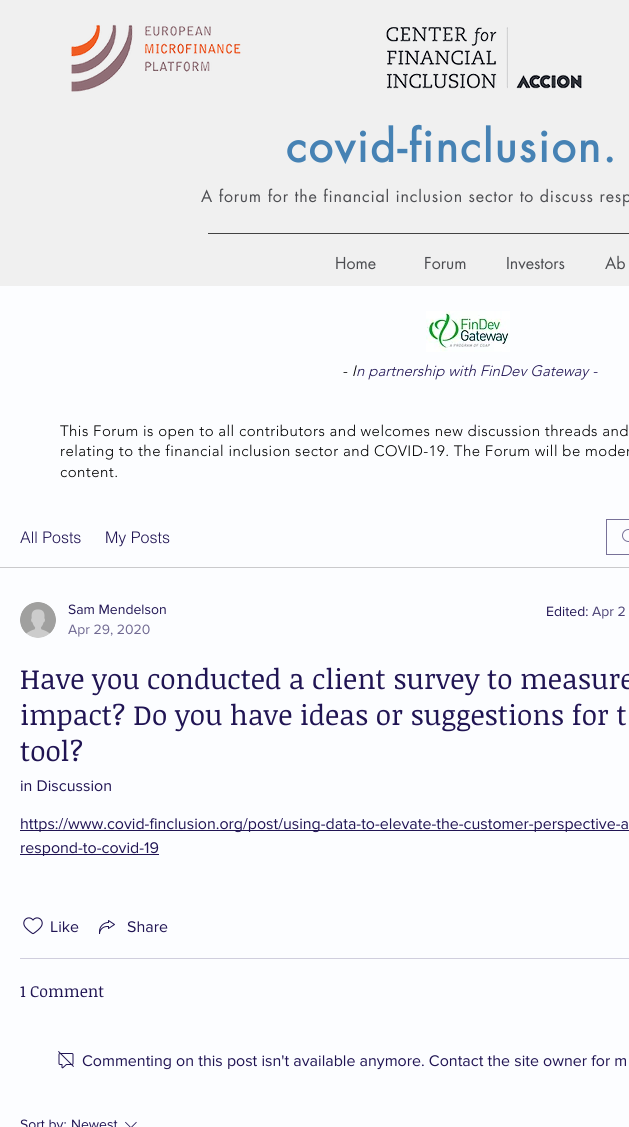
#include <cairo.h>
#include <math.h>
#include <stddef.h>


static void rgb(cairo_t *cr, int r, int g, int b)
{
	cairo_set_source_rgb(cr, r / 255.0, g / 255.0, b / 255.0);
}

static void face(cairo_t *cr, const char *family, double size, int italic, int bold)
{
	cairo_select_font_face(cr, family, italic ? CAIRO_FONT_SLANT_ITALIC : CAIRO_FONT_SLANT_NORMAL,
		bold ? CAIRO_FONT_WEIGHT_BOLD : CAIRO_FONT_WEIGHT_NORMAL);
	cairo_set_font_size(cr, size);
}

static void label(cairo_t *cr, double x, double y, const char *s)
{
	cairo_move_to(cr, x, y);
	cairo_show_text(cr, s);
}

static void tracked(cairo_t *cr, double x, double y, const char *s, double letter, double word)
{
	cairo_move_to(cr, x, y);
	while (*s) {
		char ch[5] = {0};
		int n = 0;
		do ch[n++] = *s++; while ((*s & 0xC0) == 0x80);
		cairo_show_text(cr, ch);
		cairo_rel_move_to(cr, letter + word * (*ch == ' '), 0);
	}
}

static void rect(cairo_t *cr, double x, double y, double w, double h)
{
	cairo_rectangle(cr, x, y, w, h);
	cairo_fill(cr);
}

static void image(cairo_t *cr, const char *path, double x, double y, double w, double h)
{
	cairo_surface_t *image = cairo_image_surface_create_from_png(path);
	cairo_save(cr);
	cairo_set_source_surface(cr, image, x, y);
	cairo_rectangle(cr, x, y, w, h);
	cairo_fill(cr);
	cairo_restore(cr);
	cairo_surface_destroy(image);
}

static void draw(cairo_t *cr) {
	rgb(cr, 252, 253, 255);
	cairo_paint(cr);
	rgb(cr, 240, 240, 240);
	rect(cr, 0, 0, 629, 286);
	image(cr, "image0.png", 71, 24, 511, 68);
	face(cr, "futura", 43, 0, 1);
	rgb(cr, 70, 130, 180);
	tracked(cr, 286, 162, "covid-finclusion.", 2.1, 0);
	face(cr, "futura", 16, 0, 0);
	rgb(cr, 76, 77, 81);
	tracked(cr, 201, 202, "A forum for the financial inclusion sector to discuss resp", 0.8, 0);
	rgb(cr, 66, 66, 66);
	rect(cr, 208, 233, 421, 1);
	rgb(cr, 76, 77, 81);
	label(cr, 335, 269, "Home");
	label(cr, 424, 269, "Forum");
	label(cr, 506, 269, "Investors");
	label(cr, 605, 269, "Ab");
	image(cr, "image1.png", 426, 311, 84, 41);
	face(cr, "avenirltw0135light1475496 Light", 15, 1, 0);
	rgb(cr, 0, 0, 0);
	tracked(cr, 342, 376, "- I", 0.45, 0);
	rgb(cr, 32, 20, 83);
	label(cr, 356, 376, "n partnership with FinDev Gateway -");
	face(cr, "avenirltw0135light1475496 Light", 15, 0, 0);
	rgb(cr, 0, 0, 0);
	tracked(cr, 60, 436, "This Forum is open to all contributors and welcomes new discussion threads and", 0.45, 0);
	tracked(cr, 60, 456, "relating to the financial inclusion sector and COVID-19. The Forum will be moder", 0.45, 0);
	tracked(cr, 60, 477, "content.", 0.45, 0);
	rgb(cr, 202, 202, 204);
	rect(cr, 0, 567, 629, 1);
	face(cr, "helvetica Light", 16, 0, 0);
	rgb(cr, 32, 20, 83);
	label(cr, 20, 543, "All Posts");
	label(cr, 105, 543, "My Posts");
	image(cr, "image2.png", 622, 529, 7, 13);
	cairo_rectangle(cr, 606.5, 519.5, 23, 35);
	rgb(cr, 120, 113, 152);
	cairo_set_line_width(cr, 1);
	cairo_stroke(cr);
	image(cr, "image3.png", 20, 602, 36, 36);
	face(cr, "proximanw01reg", 14, 0, 0);
	rgb(cr, 32, 20, 83);
	label(cr, 68, 614, "Sam Mendelson");
	rgb(cr, 111, 104, 145);
	label(cr, 68, 634, "Apr 29, 2020");
	rgb(cr, 32, 20, 83);
	label(cr, 546, 616, "Edited:");
	rgb(cr, 76, 67, 117);
	label(cr, 592, 616, "Apr 2");
	face(cr, "Noticia Text", 28, 0, 0);
	rgb(cr, 32, 20, 83);
	label(cr, 20, 689, "Have you conducted a client survey to measure");
	label(cr, 20, 725, "impact? Do you have ideas or suggestions for t");
	label(cr, 20, 761, "tool?");
	face(cr, "proximanw01reg", 16, 0, 0);
	label(cr, 20, 791, "in Discussion");
	rect(cr, 20, 830, 609, 1);
	label(cr, 20, 829, "https://www.covid-finclusion.org/post/using-data-to-elevate-the-customer-perspective-a");
	rect(cr, 20, 854, 139, 1);
	label(cr, 20, 853, "respond-to-covid-19");
	image(cr, "image4.png", 23, 917, 20, 18);
	label(cr, 50, 932, "Like");
	image(cr, "image5.png", 99, 920, 16, 14);
	label(cr, 127, 932, "Share");
	rgb(cr, 208, 206, 221);
	rect(cr, 20, 958, 609, 1);
	face(cr, "Noticia Text", 16, 0, 0);
	rgb(cr, 32, 20, 83);
	label(cr, 20, 997, "1 Comment");
	image(cr, "image6.png", 58, 1051, 16, 18);
	face(cr, "proximanw01reg", 16, 0, 0);
	label(cr, 82, 1066, "Commenting on this post isn't available anymore. Contact the site owner for m");
	face(cr, "proximanw01reg", 14, 0, 0);
	label(cr, 20, 1129, "Sort by:");
	label(cr, 71, 1129, "Newest");
	image(cr, "image7.png", 125, 1121, 12, 6);
}

int main(void) {
	cairo_surface_t *surface = cairo_image_surface_create(CAIRO_FORMAT_RGB24, 629, 1127);
	cairo_t *cr = cairo_create(surface);
	cairo_font_options_t *options = cairo_font_options_create();
	cairo_font_options_set_hint_metrics(options, CAIRO_HINT_METRICS_OFF);
	cairo_font_options_set_hint_style(options, CAIRO_HINT_STYLE_NONE);
	cairo_set_font_options(cr, options);
	cairo_set_miter_limit(cr, 4);
	draw(cr);
	cairo_surface_write_to_png(surface, "render.png");
	cairo_font_options_destroy(options);
	cairo_destroy(cr);
	cairo_surface_destroy(surface);
	return 0;
}
